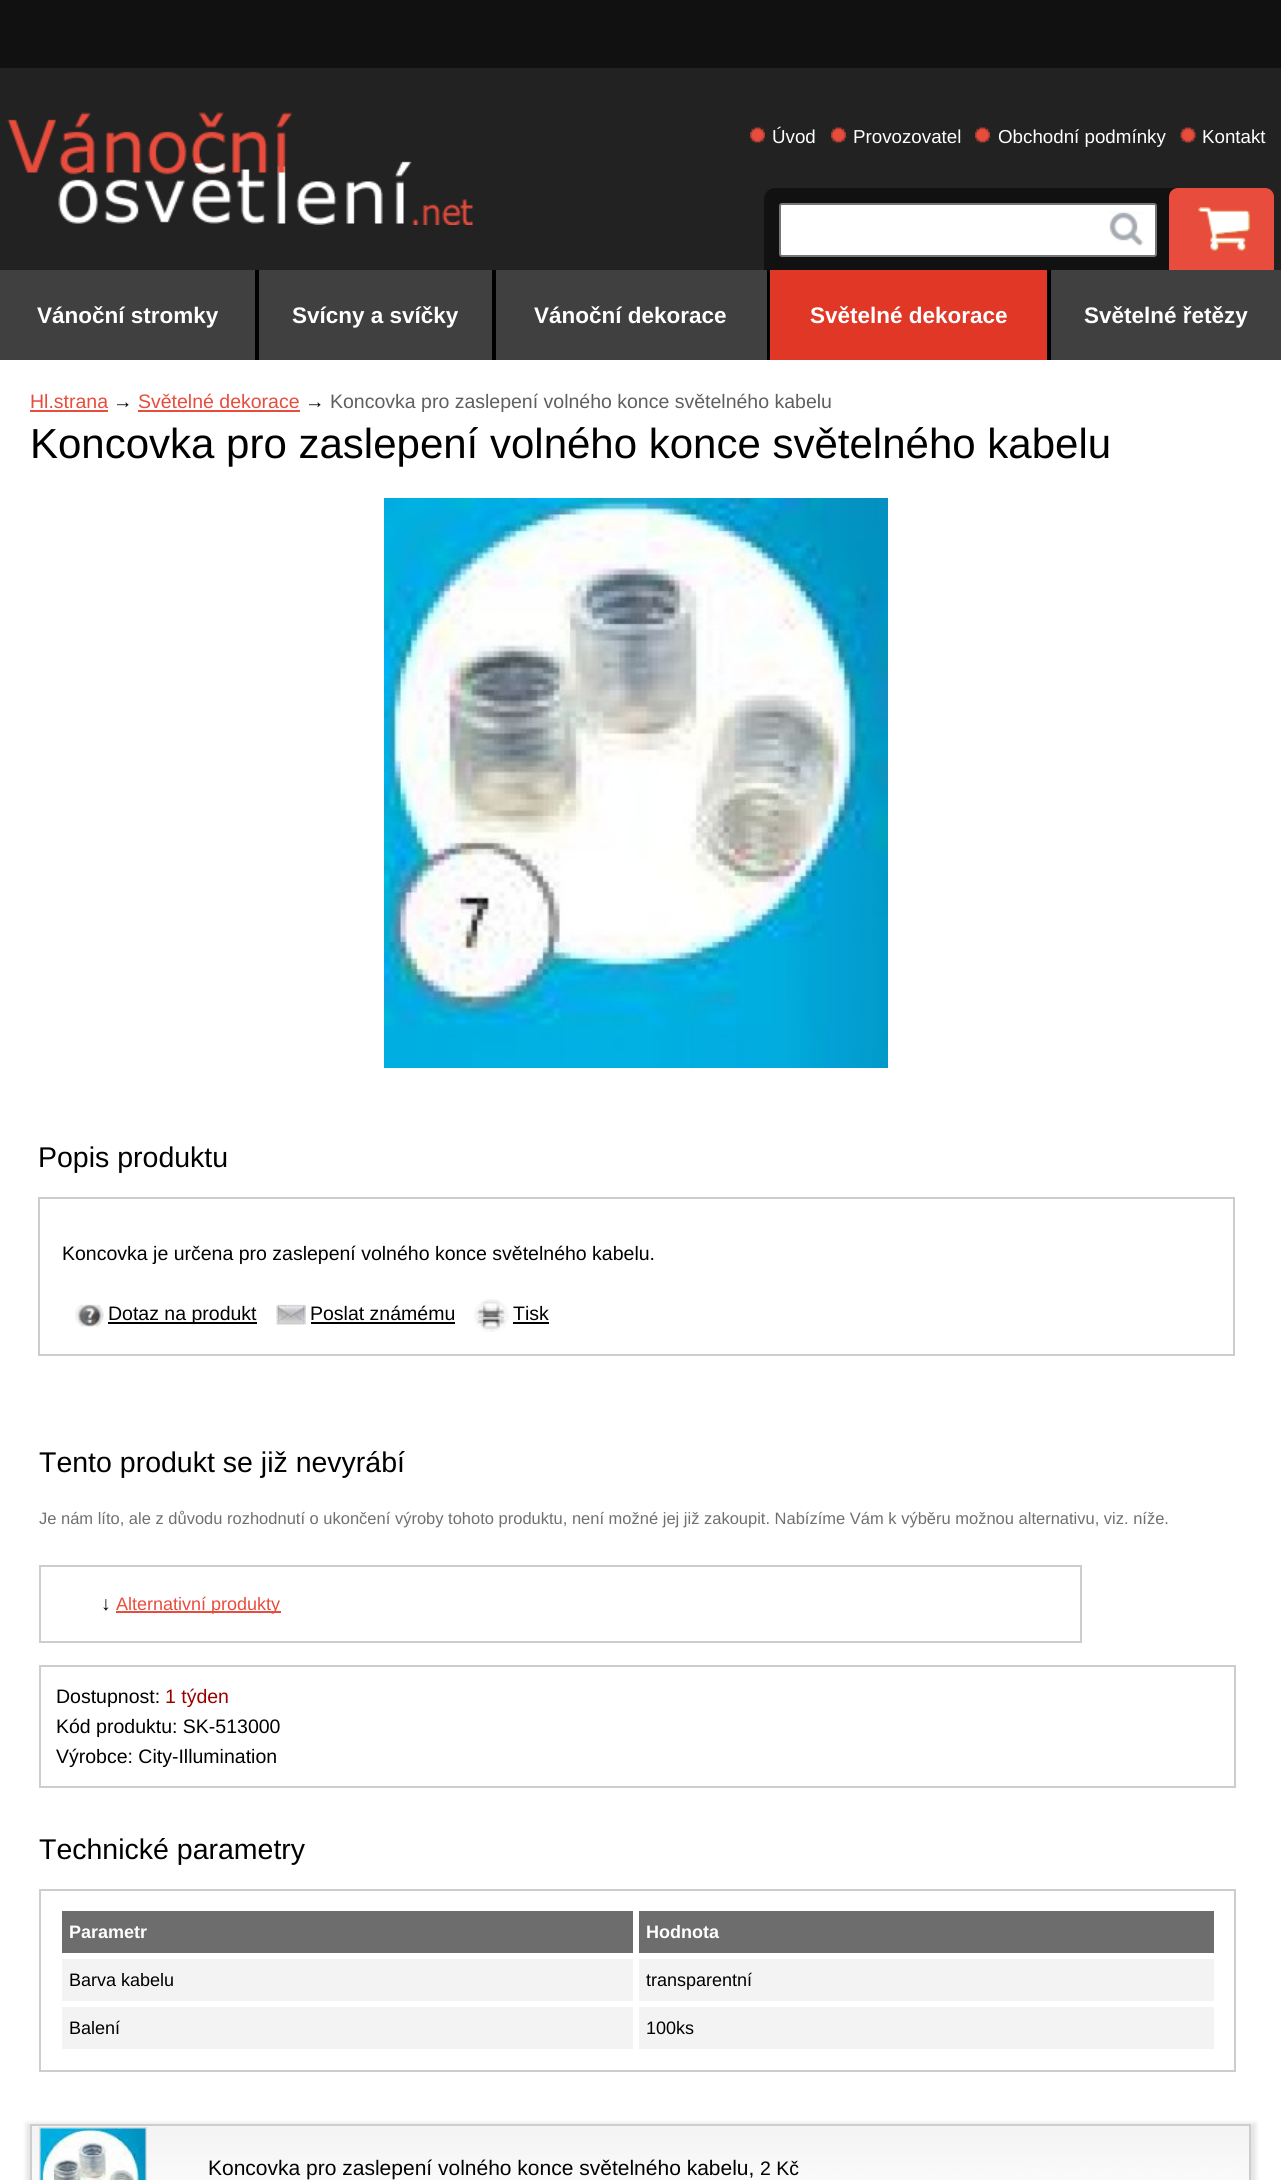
#include <cairo.h>
#include <math.h>
#include <stddef.h>


static void rgb(cairo_t *cr, int r, int g, int b)
{
	cairo_set_source_rgb(cr, r / 255.0, g / 255.0, b / 255.0);
}

static void face(cairo_t *cr, const char *family, double size, int italic, int bold)
{
	cairo_select_font_face(cr, family, italic ? CAIRO_FONT_SLANT_ITALIC : CAIRO_FONT_SLANT_NORMAL,
		bold ? CAIRO_FONT_WEIGHT_BOLD : CAIRO_FONT_WEIGHT_NORMAL);
	cairo_set_font_size(cr, size);
}

static void label(cairo_t *cr, double x, double y, const char *s)
{
	cairo_move_to(cr, x, y);
	cairo_show_text(cr, s);
}

static void rect(cairo_t *cr, double x, double y, double w, double h)
{
	cairo_rectangle(cr, x, y, w, h);
	cairo_fill(cr);
}

static void rrect(cairo_t *cr, double x, double y, double w, double h, double r)
{
	cairo_new_sub_path(cr);
	cairo_arc(cr, x + w - r, y + h - r, r, 0, M_PI / 2);
	cairo_arc(cr, x + r, y + h - r, r, M_PI / 2, M_PI);
	cairo_arc(cr, x + r, y + r, r, M_PI, 1.5 * M_PI);
	cairo_arc(cr, x + w - r, y + r, r, 1.5 * M_PI, 2 * M_PI);
	cairo_close_path(cr);
}

static void soft_shadow(cairo_t *cr, double x, double y, double w, double h, double r, double blur, double alpha)
{
	cairo_push_group_with_content(cr, CAIRO_CONTENT_ALPHA);
	cairo_set_operator(cr, CAIRO_OPERATOR_SOURCE);
	for (int i = 15; i >= -15 && fmin(w, h) + blur * i / 3 > 0; i -= 2) {
		double e = blur * i / 6;
		cairo_set_source_rgba(cr, 0, 0, 0, alpha * erfc((i - 1) / 8.5) / 2);
		rrect(cr, x - e, y - e, w + 2 * e, h + 2 * e, fmax(0, fmin(r + e + blur * .6, fmin(w, h) / 2 + e)));
		cairo_fill(cr);
	}
	cairo_pattern_t *soft = cairo_pop_group(cr);
	cairo_mask(cr, soft);
	cairo_pattern_destroy(soft);
}

static void image(cairo_t *cr, const char *path, double x, double y, double w, double h)
{
	cairo_surface_t *image = cairo_image_surface_create_from_png(path);
	cairo_save(cr);
	cairo_set_source_surface(cr, image, x, y);
	cairo_rectangle(cr, x, y, w, h);
	cairo_fill(cr);
	cairo_restore(cr);
	cairo_surface_destroy(image);
}

static void draw(cairo_t *cr) {
	rgb(cr, 34, 34, 34);
	cairo_paint(cr);
	rgb(cr, 17, 17, 17);
	rect(cr, 0, 0, 1281, 68);
	image(cr, "image0.png", 7, 112, 466, 113);
	image(cr, "image1.png", 750, 127, 15, 16);
	face(cr, "Liberation Sans", 18.75, 0, 0);
	rgb(cr, 255, 255, 255);
	label(cr, 772, 143, "Úvod");
	image(cr, "image2.png", 831, 127, 15, 16);
	label(cr, 853, 143, "Provozovatel");
	image(cr, "image2.png", 975, 127, 15, 16);
	label(cr, 998, 143, "Obchodní podmínky");
	image(cr, "image3.png", 1180, 127, 16, 16);
	label(cr, 1202, 143, "Kontakt");
	rgb(cr, 17, 17, 17);
	cairo_new_path(cr);
	cairo_move_to(cr, 775, 188);
	cairo_line_to(cr, 1176, 188);
	cairo_line_to(cr, 1176, 270);
	cairo_line_to(cr, 764, 270);
	cairo_line_to(cr, 764, 199);
	cairo_curve_to(cr, 764, 193, 769, 188, 775, 188);
	cairo_close_path(cr);
	cairo_fill(cr);
	rgb(cr, 255, 255, 255);
	rrect(cr, 780, 204, 376, 52, 2);
	cairo_fill_preserve(cr);
	rgb(cr, 118, 118, 118);
	cairo_stroke(cr);
	image(cr, "image4.png", 1109, 211, 35, 35);
	rgb(cr, 231, 76, 60);
	cairo_new_path(cr);
	cairo_move_to(cr, 1178, 188);
	cairo_line_to(cr, 1265, 188);
	cairo_curve_to(cr, 1270, 188, 1274, 192, 1274, 197);
	cairo_line_to(cr, 1274, 270);
	cairo_line_to(cr, 1169, 270);
	cairo_line_to(cr, 1169, 197);
	cairo_curve_to(cr, 1169, 192, 1173, 188, 1178, 188);
	cairo_close_path(cr);
	cairo_fill(cr);
	image(cr, "image5.png", 1198, 207, 53, 45);
	rgb(cr, 65, 64, 64);
	rect(cr, 0, 270, 255, 90);
	rgb(cr, 0, 0, 0);
	rect(cr, 255, 270, 4, 90);
	face(cr, "Liberation Sans", 22.5, 0, 1);
	rgb(cr, 255, 255, 255);
	label(cr, 37, 323, "Vánoční stromky");
	rgb(cr, 65, 64, 64);
	rect(cr, 259, 270, 233, 90);
	rgb(cr, 0, 0, 0);
	rect(cr, 492, 270, 4, 90);
	rgb(cr, 255, 255, 255);
	label(cr, 292, 323, "Svícny a svíčky");
	rgb(cr, 65, 64, 64);
	rect(cr, 496, 270, 271, 90);
	rgb(cr, 0, 0, 0);
	rect(cr, 767, 270, 3, 90);
	rgb(cr, 255, 255, 255);
	label(cr, 534, 323, "Vánoční dekorace");
	rgb(cr, 0, 0, 0);
	rect(cr, 1047, 270, 4, 90);
	rgb(cr, 224, 55, 38);
	rect(cr, 770, 270, 277, 90);
	rgb(cr, 255, 255, 255);
	label(cr, 810, 323, "Světelné dekorace");
	rgb(cr, 65, 64, 64);
	rect(cr, 1051, 270, 230, 90);
	rgb(cr, 255, 255, 255);
	label(cr, 1084, 323, "Světelné řetězy");
	rect(cr, 0, 360, 1281, 1820);
	face(cr, "Liberation Sans", 19.5, 0, 0);
	rgb(cr, 231, 76, 60);
	label(cr, 30, 408, "Hl.strana");
	rect(cr, 30, 410, 78, 2);
	rgb(cr, 0, 0, 0);
	label(cr, 113, 408, "→");
	rgb(cr, 231, 76, 60);
	label(cr, 138, 408, "Světelné dekorace");
	rect(cr, 138, 410, 162, 2);
	rgb(cr, 0, 0, 0);
	label(cr, 305, 408, "→");
	rgb(cr, 95, 95, 95);
	label(cr, 330, 408, "Koncovka pro zaslepení volného konce světelného kabelu");
	face(cr, "Liberation Sans", 42, 0, 0);
	rgb(cr, 0, 0, 0);
	label(cr, 30, 458, "Koncovka pro zaslepení volného konce světelného kabelu");
	image(cr, "image6.png", 384, 498, 504, 570);
	face(cr, "Liberation Sans", 28.5, 0, 0);
	label(cr, 38, 1167, "Popis produktu");
	cairo_rectangle(cr, 39, 1198, 1195, 157);
	rgb(cr, 205, 205, 205);
	cairo_stroke(cr);
	face(cr, "Liberation Sans", 19.5, 0, 0);
	rgb(cr, 0, 0, 0);
	label(cr, 62, 1260, "Koncovka je určena pro zaslepení volného konce světelného kabelu.");
	image(cr, "image7.png", 75, 1304, 29, 23);
	rect(cr, 108, 1322, 149, 2);
	label(cr, 108, 1320, "Dotaz na produkt");
	image(cr, "image8.png", 276, 1304, 30, 21);
	label(cr, 310, 1320, "Poslat známému");
	rect(cr, 311, 1322, 144, 2);
	image(cr, "image9.png", 474, 1299, 35, 33);
	label(cr, 513, 1320, "Tisk");
	rect(cr, 513, 1322, 36, 2);
	face(cr, "Liberation Sans", 28.5, 0, 0);
	label(cr, 39, 1472, "Tento produkt se již nevyrábí");
	face(cr, "Liberation Sans", 16.5, 0, 0);
	rgb(cr, 112, 112, 112);
	label(cr, 39, 1524, "Je nám líto, ale z důvodu rozhodnutí o ukončení výroby tohoto produktu, není možné jej již zakoupit. Nabízíme Vám k výběru možnou alternativu, viz. níže.");
	cairo_rectangle(cr, 40, 1566, 1041, 76);
	rgb(cr, 205, 205, 205);
	cairo_stroke(cr);
	face(cr, "Liberation Sans", 19.5, 0, 0);
	rgb(cr, 0, 0, 0);
	label(cr, 101, 1610, "↓");
	rgb(cr, 231, 76, 60);
	rect(cr, 116, 1611, 165, 2);
	face(cr, "Liberation Sans", 18, 0, 0);
	label(cr, 116, 1610, "Alternativní produkty");
	cairo_rectangle(cr, 40, 1666, 1195, 121);
	rgb(cr, 205, 205, 205);
	cairo_stroke(cr);
	face(cr, "Liberation Sans", 19.5, 0, 0);
	rgb(cr, 0, 0, 0);
	label(cr, 56, 1703, "Dostupnost:");
	rgb(cr, 152, 0, 0);
	label(cr, 165, 1703, "1 týden");
	rgb(cr, 0, 0, 0);
	label(cr, 56, 1733, "Kód produktu: SK-513000");
	label(cr, 56, 1763, "Výrobce: City-Illumination");
	face(cr, "Liberation Sans", 28.5, 0, 0);
	label(cr, 39, 1859, "Technické parametry");
	cairo_rectangle(cr, 40, 1890, 1195, 181);
	rgb(cr, 205, 205, 205);
	cairo_stroke(cr);
	rgb(cr, 109, 109, 109);
	rect(cr, 62, 1911, 571, 42);
	face(cr, "Liberation Sans", 18, 0, 1);
	rgb(cr, 255, 255, 255);
	label(cr, 69, 1938, "Parametr");
	rgb(cr, 109, 109, 109);
	rect(cr, 639, 1911, 575, 42);
	rgb(cr, 255, 255, 255);
	label(cr, 646, 1938, "Hodnota");
	rgb(cr, 243, 243, 243);
	rect(cr, 62, 1959, 571, 42);
	face(cr, "Liberation Sans", 18, 0, 0);
	rgb(cr, 0, 0, 0);
	label(cr, 69, 1986, "Barva kabelu");
	rgb(cr, 243, 243, 243);
	rect(cr, 639, 1959, 575, 42);
	rgb(cr, 0, 0, 0);
	label(cr, 646, 1986, "transparentní");
	rgb(cr, 243, 243, 243);
	rect(cr, 62, 2007, 571, 42);
	rgb(cr, 0, 0, 0);
	label(cr, 69, 2034, "Balení");
	rgb(cr, 243, 243, 243);
	rect(cr, 639, 2007, 575, 42);
	rgb(cr, 0, 0, 0);
	label(cr, 646, 2034, "100ks");
	cairo_save(cr);
	cairo_set_fill_rule(cr, CAIRO_FILL_RULE_EVEN_ODD);
	cairo_new_path(cr);
	cairo_move_to(cr, 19, 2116);
	cairo_line_to(cr, 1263, 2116);
	cairo_line_to(cr, 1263, 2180);
	cairo_line_to(cr, 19, 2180);
	cairo_close_path(cr);
	cairo_move_to(cr, 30, 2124);
	cairo_line_to(cr, 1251, 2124);
	cairo_line_to(cr, 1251, 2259);
	cairo_line_to(cr, 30, 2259);
	cairo_close_path(cr);
	cairo_clip(cr);
	rgb(cr, 229, 229, 229);
	soft_shadow(cr, 26, 2123, 1230, 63, 0, 2, 1);
	cairo_restore(cr);
	image(cr, "image10.png", 32, 2126, 1217, 54);
	cairo_rectangle(cr, 31, 2125, 1219, 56);
	rgb(cr, 205, 205, 205);
	cairo_stroke(cr);
	cairo_rectangle(cr, 40, 2128, 106, 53);
	rgb(cr, 221, 221, 221);
	cairo_stroke(cr);
	image(cr, "image11.png", 40, 2128, 106, 52);
	face(cr, "Liberation Sans", 21, 0, 0);
	rgb(cr, 0, 0, 0);
	label(cr, 208, 2175, "Koncovka pro zaslepení volného konce světelného kabelu,");
	face(cr, "Liberation Sans", 19.5, 0, 0);
	label(cr, 760, 2175, "2 Kč");
}

int main(void) {
	cairo_surface_t *surface = cairo_image_surface_create(CAIRO_FORMAT_RGB24, 1281, 2180);
	cairo_t *cr = cairo_create(surface);
	cairo_font_options_t *options = cairo_font_options_create();
	cairo_font_options_set_hint_metrics(options, CAIRO_HINT_METRICS_OFF);
	cairo_font_options_set_hint_style(options, CAIRO_HINT_STYLE_NONE);
	cairo_set_font_options(cr, options);
	cairo_set_miter_limit(cr, 4);
	draw(cr);
	cairo_surface_write_to_png(surface, "render.png");
	cairo_font_options_destroy(options);
	cairo_destroy(cr);
	cairo_surface_destroy(surface);
	return 0;
}
